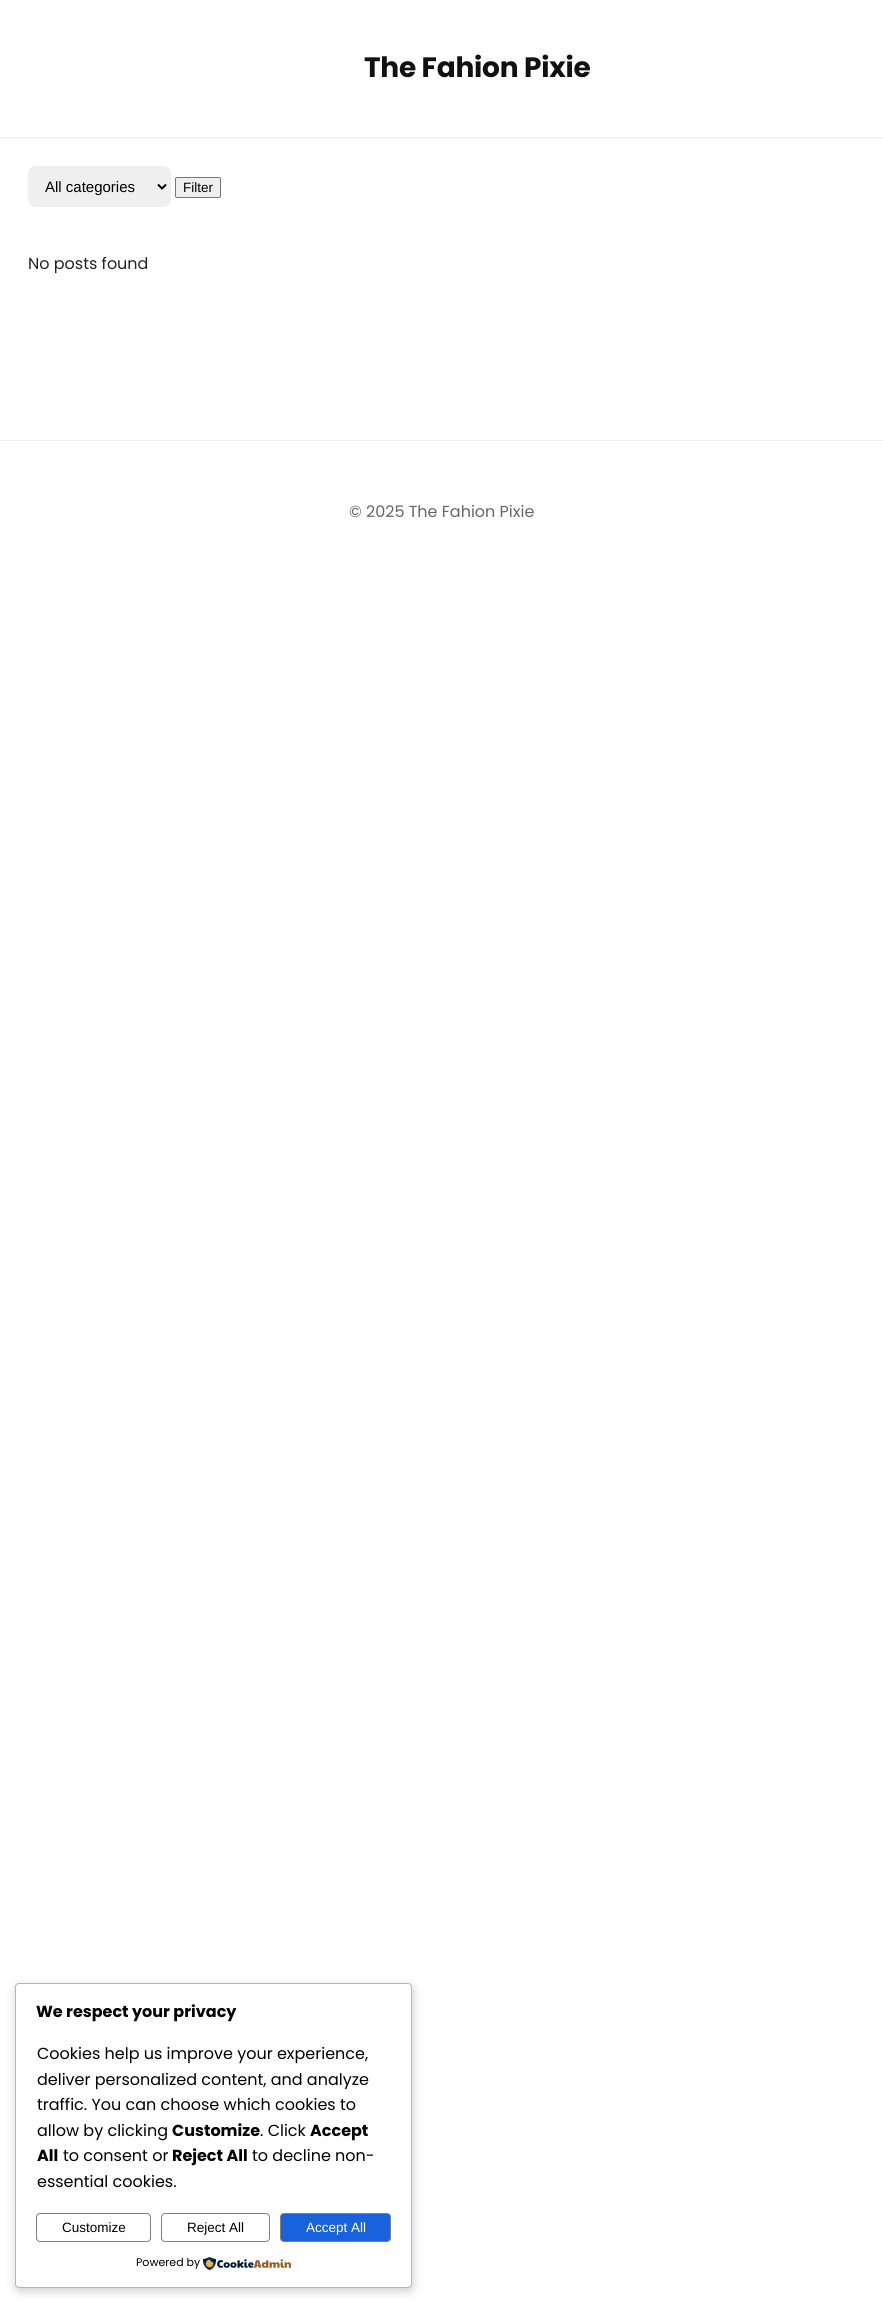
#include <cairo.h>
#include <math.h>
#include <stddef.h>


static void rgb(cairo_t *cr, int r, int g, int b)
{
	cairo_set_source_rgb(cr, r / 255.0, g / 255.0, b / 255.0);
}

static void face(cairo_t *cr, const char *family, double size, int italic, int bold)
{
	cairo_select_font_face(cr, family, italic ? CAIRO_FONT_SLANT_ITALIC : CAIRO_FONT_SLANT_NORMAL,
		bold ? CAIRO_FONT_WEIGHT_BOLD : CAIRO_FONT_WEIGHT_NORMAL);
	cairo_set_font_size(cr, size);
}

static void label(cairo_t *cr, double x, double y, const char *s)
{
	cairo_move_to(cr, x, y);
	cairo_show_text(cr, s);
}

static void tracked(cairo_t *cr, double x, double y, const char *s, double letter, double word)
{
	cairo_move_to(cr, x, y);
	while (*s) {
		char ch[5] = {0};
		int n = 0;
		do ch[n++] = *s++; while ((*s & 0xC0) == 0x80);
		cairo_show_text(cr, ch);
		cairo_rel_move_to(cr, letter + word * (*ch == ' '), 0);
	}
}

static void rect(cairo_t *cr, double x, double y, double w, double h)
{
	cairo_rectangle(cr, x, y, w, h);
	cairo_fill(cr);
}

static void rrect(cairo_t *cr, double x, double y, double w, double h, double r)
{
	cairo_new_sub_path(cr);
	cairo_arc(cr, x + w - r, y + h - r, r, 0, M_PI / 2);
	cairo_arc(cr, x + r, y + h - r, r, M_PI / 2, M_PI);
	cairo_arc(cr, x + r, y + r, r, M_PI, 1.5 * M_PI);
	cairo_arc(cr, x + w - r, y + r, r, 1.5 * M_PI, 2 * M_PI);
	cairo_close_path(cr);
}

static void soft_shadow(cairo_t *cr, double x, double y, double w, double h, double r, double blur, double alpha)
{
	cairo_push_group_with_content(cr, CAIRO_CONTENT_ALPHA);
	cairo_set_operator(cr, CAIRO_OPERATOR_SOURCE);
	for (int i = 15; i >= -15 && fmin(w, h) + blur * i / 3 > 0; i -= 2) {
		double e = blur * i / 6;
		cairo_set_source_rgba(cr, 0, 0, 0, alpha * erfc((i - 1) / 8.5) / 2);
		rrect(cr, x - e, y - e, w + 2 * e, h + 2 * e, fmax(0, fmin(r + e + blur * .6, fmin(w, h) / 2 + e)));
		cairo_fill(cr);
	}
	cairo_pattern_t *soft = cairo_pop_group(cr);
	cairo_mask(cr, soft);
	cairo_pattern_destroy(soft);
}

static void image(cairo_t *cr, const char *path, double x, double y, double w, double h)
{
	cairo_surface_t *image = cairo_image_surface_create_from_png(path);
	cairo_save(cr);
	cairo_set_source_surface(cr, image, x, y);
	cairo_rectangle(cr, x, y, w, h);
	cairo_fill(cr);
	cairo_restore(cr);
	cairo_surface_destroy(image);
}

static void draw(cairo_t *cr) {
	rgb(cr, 255, 255, 255);
	cairo_paint(cr);
	rgb(cr, 240, 240, 240);
	rect(cr, 0, 137, 883, 1);
	face(cr, "Poppins", 28, 0, 1);
	rgb(cr, 17, 17, 17);
	tracked(cr, 364, 77, "The Fahion Pixie", -0.25, 0);
	rgb(cr, 239, 239, 239);
	rrect(cr, 28.5, 166.5, 142, 40, 7.5);
	cairo_fill_preserve(cr);
	rgb(cr, 238, 238, 238);
	cairo_set_line_width(cr, 1);
	cairo_stroke(cr);
	cairo_new_path(cr);
	cairo_move_to(cr, 158, 184.5);
	cairo_line_to(cr, 162, 188.5);
	cairo_line_to(cr, 166, 184.5);
	rgb(cr, 0, 0, 0);
	cairo_set_line_width(cr, 2);
	cairo_stroke(cr);
	face(cr, "Liberation Sans", 15, 0, 0);
	label(cr, 45, 192, "All categories");
	rgb(cr, 239, 239, 239);
	rrect(cr, 175.5, 177.5, 45, 20, 1.5);
	cairo_fill_preserve(cr);
	rgb(cr, 118, 118, 118);
	cairo_set_line_width(cr, 1);
	cairo_stroke(cr);
	face(cr, "Liberation Sans", 13.5, 0, 0);
	rgb(cr, 0, 0, 0);
	label(cr, 183, 192, "Filter");
	face(cr, "Poppins", 16, 0, 0);
	rgb(cr, 34, 34, 34);
	label(cr, 28, 269, "No posts found");
	rgb(cr, 238, 238, 238);
	rect(cr, 0, 440, 883, 1);
	rgb(cr, 102, 102, 102);
	label(cr, 349, 517, "© 2025 The Fahion Pixie");
	rgb(cr, 0, 0, 0);
	soft_shadow(cr, 16, 1986, 397, 305, 4, 5, 0.2);
	rgb(cr, 255, 255, 255);
	rrect(cr, 15.5, 1983.5, 396, 304, 3.5);
	cairo_fill_preserve(cr);
	rgb(cr, 171, 184, 195);
	cairo_stroke(cr);
	face(cr, "Poppins", 16, 0, 1);
	rgb(cr, 0, 0, 0);
	label(cr, 36, 2017, "We respect your privacy");
	face(cr, "Poppins", 16, 0, 0);
	label(cr, 37, 2059, "Cookies help us improve your experience,");
	label(cr, 37, 2085, "deliver personalized content, and analyze");
	label(cr, 37, 2110, "traffic. You can choose which cookies to");
	label(cr, 37, 2136, "allow by clicking");
	face(cr, "Poppins", 16, 0, 1);
	label(cr, 172, 2136, "Customize");
	face(cr, "Poppins", 16, 0, 0);
	label(cr, 260, 2136, ". Click");
	face(cr, "Poppins", 16, 0, 1);
	label(cr, 310, 2136, "Accept");
	label(cr, 37, 2161, "All");
	face(cr, "Poppins", 16, 0, 0);
	label(cr, 63, 2161, "to consent or");
	face(cr, "Poppins", 16, 0, 1);
	label(cr, 172, 2161, "Reject All");
	face(cr, "Poppins", 16, 0, 0);
	label(cr, 252, 2161, "to decline non-");
	label(cr, 37, 2187, "essential cookies.");
	rrect(cr, 36.5, 2213.5, 114, 28, 3.5);
	rgb(cr, 128, 128, 128);
	cairo_stroke(cr);
	face(cr, "Liberation Sans", 13.5, 0, 0);
	rgb(cr, 0, 0, 0);
	label(cr, 62, 2232, "Customize");
	rrect(cr, 161.5, 2213.5, 108, 28, 3.5);
	rgb(cr, 128, 128, 128);
	cairo_stroke(cr);
	rgb(cr, 0, 0, 0);
	label(cr, 187, 2232, "Reject All");
	rgb(cr, 24, 99, 220);
	rrect(cr, 280.5, 2213.5, 110, 28, 3.5);
	cairo_fill_preserve(cr);
	rgb(cr, 128, 128, 128);
	cairo_stroke(cr);
	rgb(cr, 255, 255, 255);
	label(cr, 306, 2232, "Accept All");
	face(cr, "Poppins", 11, 0, 0);
	rgb(cr, 0, 0, 0);
	label(cr, 136, 2266, "Powered by");
	image(cr, "image0.png", 203, 2257, 88, 14);
}

int main(void) {
	cairo_surface_t *surface = cairo_image_surface_create(CAIRO_FORMAT_RGB24, 883, 2308);
	cairo_t *cr = cairo_create(surface);
	cairo_font_options_t *options = cairo_font_options_create();
	cairo_font_options_set_hint_metrics(options, CAIRO_HINT_METRICS_OFF);
	cairo_font_options_set_hint_style(options, CAIRO_HINT_STYLE_NONE);
	cairo_set_font_options(cr, options);
	cairo_set_miter_limit(cr, 4);
	draw(cr);
	cairo_surface_write_to_png(surface, "render.png");
	cairo_font_options_destroy(options);
	cairo_destroy(cr);
	cairo_surface_destroy(surface);
	return 0;
}
